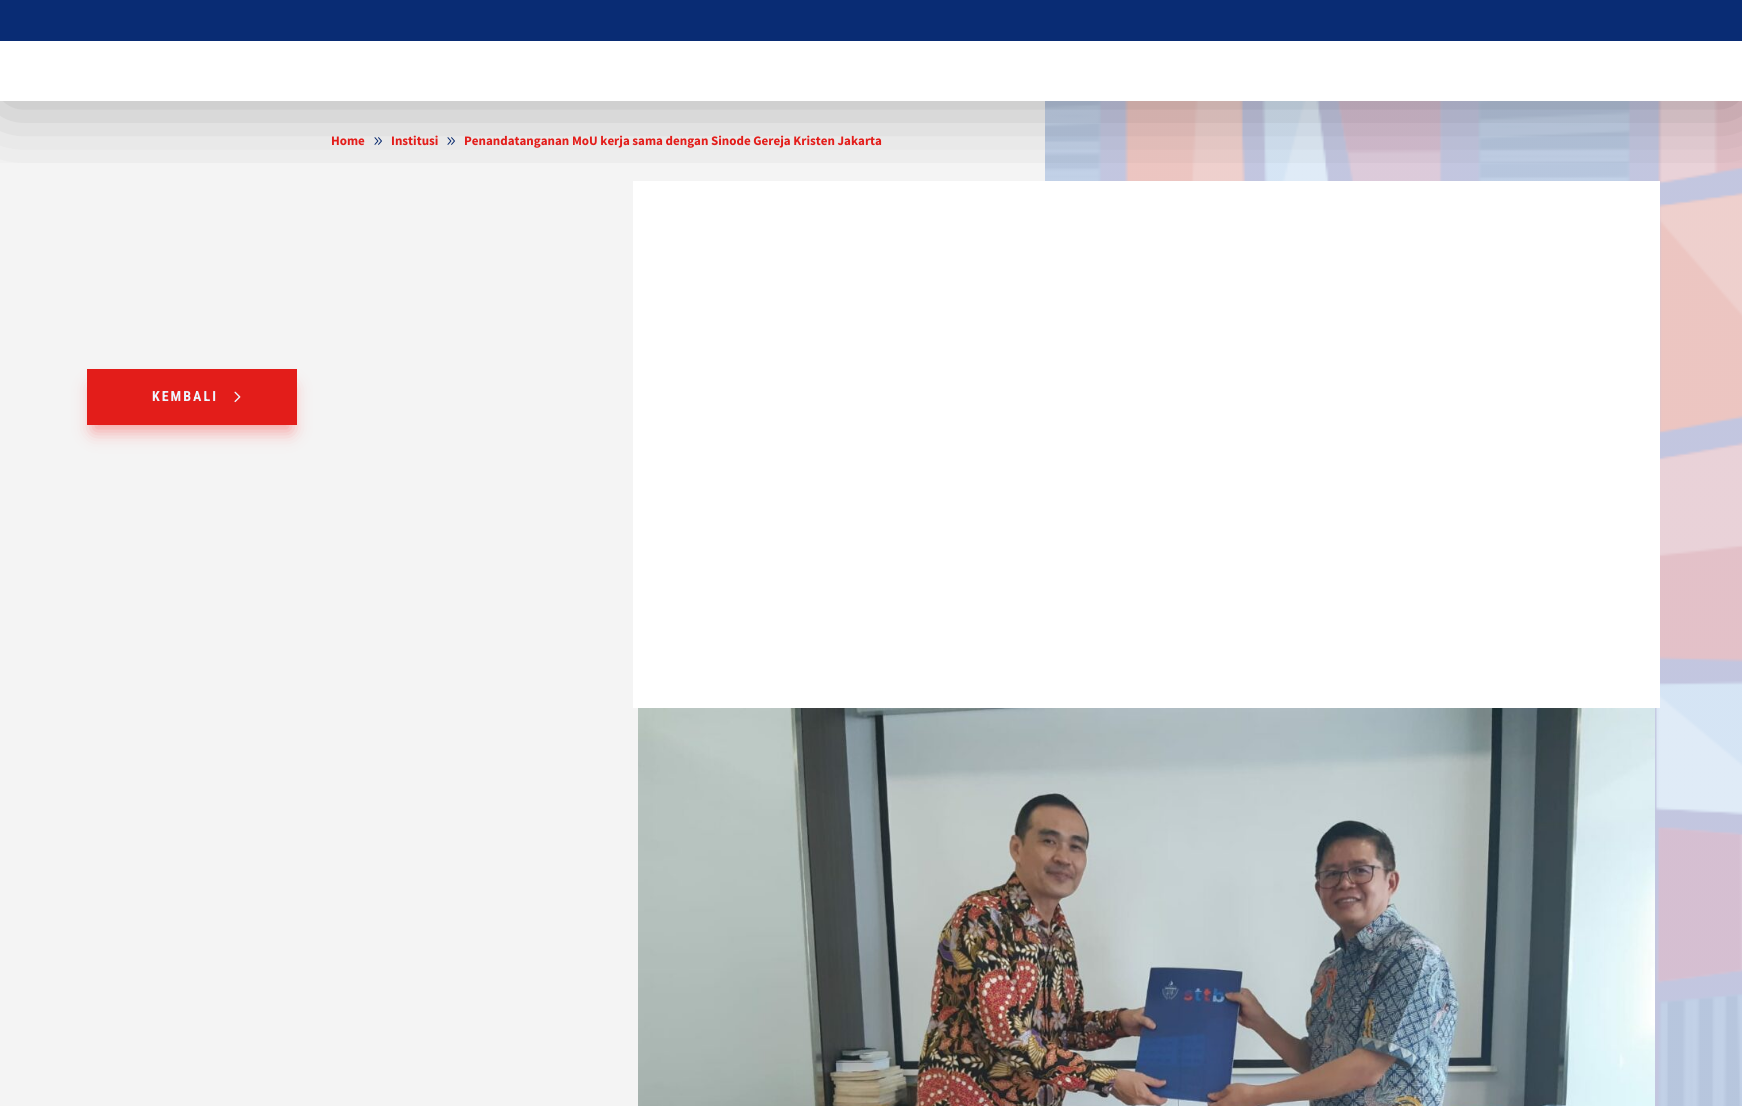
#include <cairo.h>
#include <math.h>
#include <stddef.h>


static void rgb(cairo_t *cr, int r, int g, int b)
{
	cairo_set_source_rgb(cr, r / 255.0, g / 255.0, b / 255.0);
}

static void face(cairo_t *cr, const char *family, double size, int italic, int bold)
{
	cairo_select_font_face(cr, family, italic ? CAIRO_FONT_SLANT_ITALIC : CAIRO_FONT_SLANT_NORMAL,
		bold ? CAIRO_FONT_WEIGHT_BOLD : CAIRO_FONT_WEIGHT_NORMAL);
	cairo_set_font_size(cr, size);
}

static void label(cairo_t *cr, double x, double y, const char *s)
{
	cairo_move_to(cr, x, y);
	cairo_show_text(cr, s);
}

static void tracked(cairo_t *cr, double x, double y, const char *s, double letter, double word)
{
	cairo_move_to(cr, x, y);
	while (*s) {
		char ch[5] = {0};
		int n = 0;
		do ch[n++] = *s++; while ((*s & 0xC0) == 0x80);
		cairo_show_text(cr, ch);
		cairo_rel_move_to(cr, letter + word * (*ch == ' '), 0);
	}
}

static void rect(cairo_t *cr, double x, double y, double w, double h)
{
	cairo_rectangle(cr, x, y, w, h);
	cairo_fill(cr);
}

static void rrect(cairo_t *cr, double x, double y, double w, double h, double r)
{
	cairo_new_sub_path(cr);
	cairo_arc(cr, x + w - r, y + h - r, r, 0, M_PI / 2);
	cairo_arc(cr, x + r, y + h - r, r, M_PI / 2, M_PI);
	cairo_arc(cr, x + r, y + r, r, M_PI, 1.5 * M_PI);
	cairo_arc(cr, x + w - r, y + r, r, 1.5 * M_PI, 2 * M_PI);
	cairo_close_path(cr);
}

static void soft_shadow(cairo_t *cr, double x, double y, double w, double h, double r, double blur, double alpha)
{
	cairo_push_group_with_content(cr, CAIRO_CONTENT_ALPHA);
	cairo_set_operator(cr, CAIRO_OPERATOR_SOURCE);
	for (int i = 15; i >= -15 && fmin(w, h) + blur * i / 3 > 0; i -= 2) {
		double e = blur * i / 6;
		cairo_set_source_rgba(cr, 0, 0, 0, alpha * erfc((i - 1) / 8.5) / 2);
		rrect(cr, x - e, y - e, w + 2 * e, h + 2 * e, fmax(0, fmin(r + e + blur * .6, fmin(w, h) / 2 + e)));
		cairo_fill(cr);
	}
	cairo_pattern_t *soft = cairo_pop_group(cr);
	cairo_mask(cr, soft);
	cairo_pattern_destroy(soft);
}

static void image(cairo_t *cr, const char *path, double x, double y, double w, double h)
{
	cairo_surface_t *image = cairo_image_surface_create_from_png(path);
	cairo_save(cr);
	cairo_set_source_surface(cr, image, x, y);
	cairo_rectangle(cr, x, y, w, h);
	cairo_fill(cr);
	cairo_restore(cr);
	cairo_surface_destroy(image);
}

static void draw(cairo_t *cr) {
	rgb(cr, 255, 255, 255);
	cairo_paint(cr);
	image(cr, "image0.png", 0, 101, 1742, 1005);
	image(cr, "image1.png", 374, 137, 8, 8);
	image(cr, "image1.png", 447, 137, 8, 8);
	rgb(cr, 255, 255, 255);
	rect(cr, 633, 181, 1027, 527);
	cairo_save(cr);
	cairo_rectangle(cr, 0, 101, 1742, 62);
	cairo_clip(cr);
	rgb(cr, 0, 0, 0);
	soft_shadow(cr, 0, 0, 1742, 103, 0, 40, 0.3);
	cairo_restore(cr);
	rgb(cr, 9, 44, 116);
	rect(cr, 0, 0, 1742, 41);
	face(cr, "Source Sans Pro", 13, 0, 1);
	rgb(cr, 227, 29, 26);
	label(cr, 331, 145, "Home");
	label(cr, 391, 145, "Institusi");
	label(cr, 464, 145, "Penandatanganan MoU kerja sama dengan Sinode Gereja Kristen Jakarta");
	rgb(cr, 252, 63, 63);
	soft_shadow(cr, 93, 387, 198, 44, 0, 9, 0.48);
	rgb(cr, 227, 29, 26);
	rect(cr, 87, 369, 210, 56);
	face(cr, "Roboto Condensed", 14, 0, 1);
	rgb(cr, 237, 245, 253);
	tracked(cr, 152, 401, "KEMBALI", 2, 0);
	image(cr, "image2.png", 234, 391, 7, 12);
	image(cr, "image3.png", 638, 708, 1017, 398);
}

int main(void) {
	cairo_surface_t *surface = cairo_image_surface_create(CAIRO_FORMAT_RGB24, 1742, 1106);
	cairo_t *cr = cairo_create(surface);
	cairo_font_options_t *options = cairo_font_options_create();
	cairo_font_options_set_hint_metrics(options, CAIRO_HINT_METRICS_OFF);
	cairo_font_options_set_hint_style(options, CAIRO_HINT_STYLE_NONE);
	cairo_set_font_options(cr, options);
	cairo_set_miter_limit(cr, 4);
	draw(cr);
	cairo_surface_write_to_png(surface, "render.png");
	cairo_font_options_destroy(options);
	cairo_destroy(cr);
	cairo_surface_destroy(surface);
	return 0;
}
